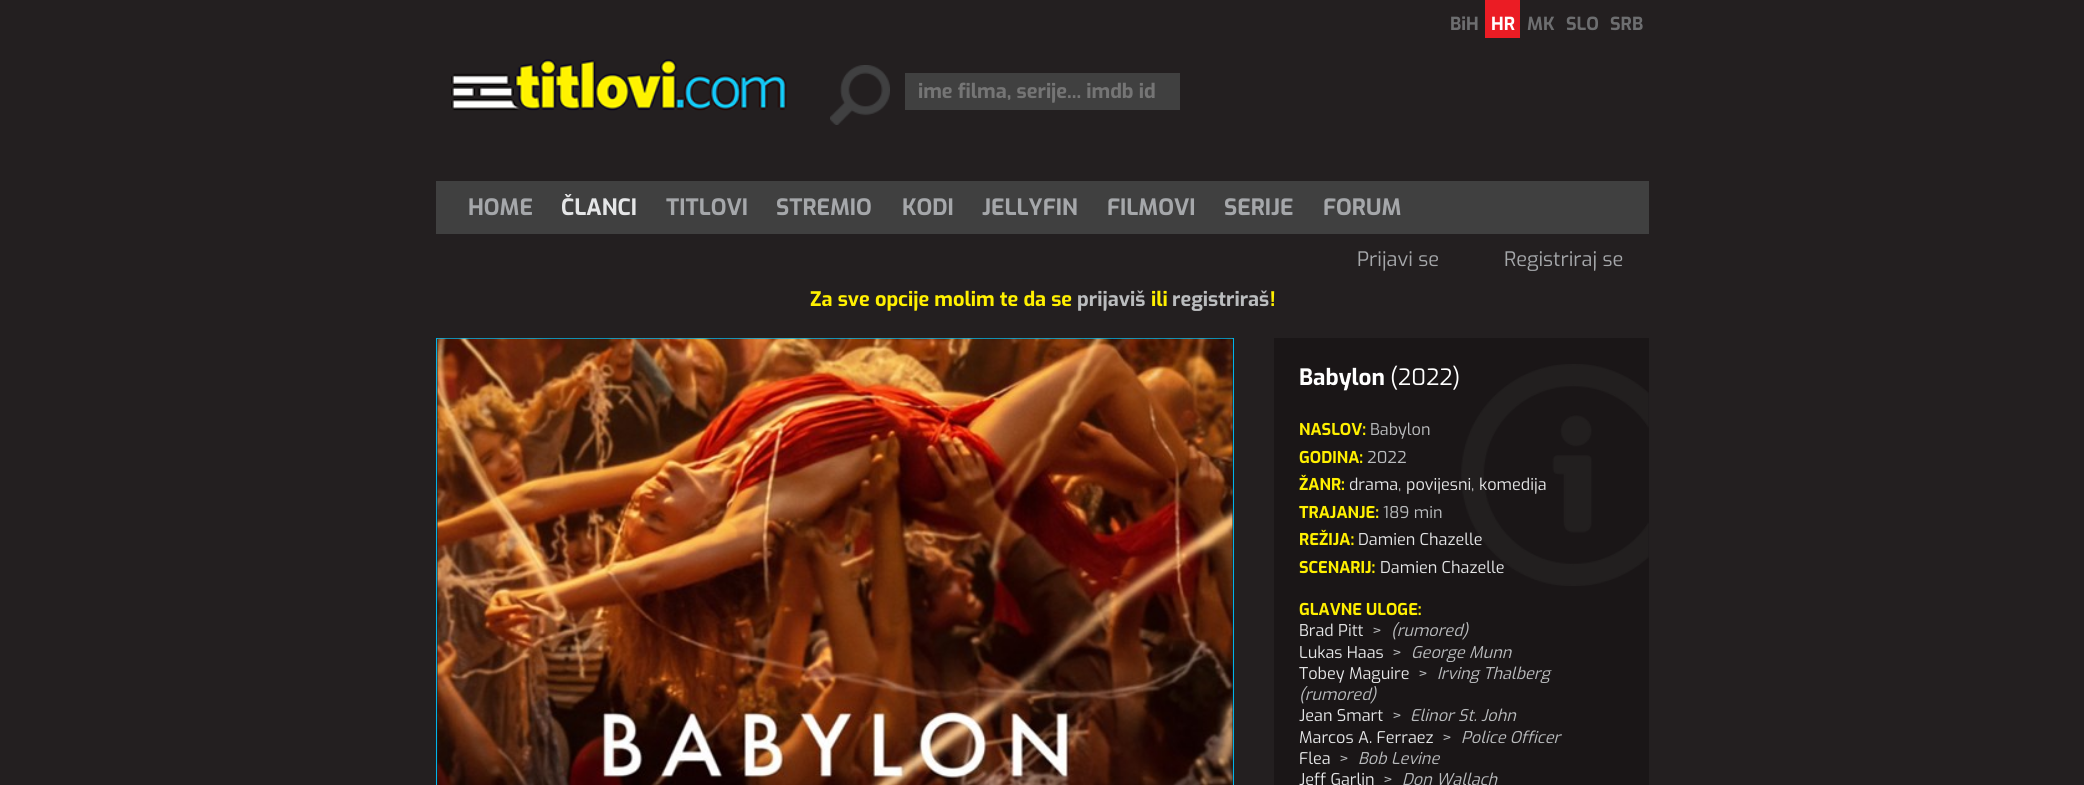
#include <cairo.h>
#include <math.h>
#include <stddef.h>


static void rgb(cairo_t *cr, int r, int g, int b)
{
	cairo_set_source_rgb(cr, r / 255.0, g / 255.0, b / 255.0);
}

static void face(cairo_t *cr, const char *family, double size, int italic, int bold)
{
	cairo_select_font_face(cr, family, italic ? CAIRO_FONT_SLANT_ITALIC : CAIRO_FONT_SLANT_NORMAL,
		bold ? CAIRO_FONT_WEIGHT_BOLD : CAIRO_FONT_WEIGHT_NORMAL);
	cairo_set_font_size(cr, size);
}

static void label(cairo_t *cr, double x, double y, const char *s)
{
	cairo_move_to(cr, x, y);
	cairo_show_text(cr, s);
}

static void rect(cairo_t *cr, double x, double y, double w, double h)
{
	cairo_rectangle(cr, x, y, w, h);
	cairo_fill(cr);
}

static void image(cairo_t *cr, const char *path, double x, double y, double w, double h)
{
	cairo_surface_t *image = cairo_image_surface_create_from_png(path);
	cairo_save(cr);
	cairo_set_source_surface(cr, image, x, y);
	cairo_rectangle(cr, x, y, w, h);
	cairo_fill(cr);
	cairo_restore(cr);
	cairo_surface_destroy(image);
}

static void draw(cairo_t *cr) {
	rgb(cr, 35, 31, 32);
	cairo_paint(cr);
	face(cr, "Exo", 18, 0, 1);
	rgb(cr, 109, 110, 112);
	label(cr, 1450, 30, "BiH");
	rgb(cr, 235, 28, 36);
	rect(cr, 1485, 0, 35, 38);
	rgb(cr, 255, 255, 255);
	label(cr, 1491, 30, "HR");
	rgb(cr, 109, 110, 112);
	label(cr, 1527, 30, "MK");
	label(cr, 1566, 30, "SLO");
	label(cr, 1610, 30, "SRB");
	image(cr, "image0.png", 451, 59, 336, 52);
	image(cr, "image1.png", 830, 65, 60, 60);
	rgb(cr, 64, 64, 64);
	rect(cr, 905, 73, 275, 37);
	face(cr, "Exo", 20, 0, 1);
	rgb(cr, 117, 117, 117);
	label(cr, 918, 98, "ime filma, serije... imdb id");
	rgb(cr, 64, 64, 64);
	rect(cr, 436, 181, 1213, 53);
	face(cr, "Exo", 22.5, 0, 1);
	rgb(cr, 165, 167, 170);
	label(cr, 468, 215, "HOME");
	rgb(cr, 229, 230, 231);
	label(cr, 561, 215, "ČLANCI");
	rgb(cr, 165, 167, 170);
	label(cr, 666, 215, "TITLOVI");
	label(cr, 776, 215, "STREMIO");
	label(cr, 902, 215, "KODI");
	label(cr, 982, 215, "JELLYFIN");
	label(cr, 1107, 215, "FILMOVI");
	label(cr, 1224, 215, "SERIJE");
	label(cr, 1323, 215, "FORUM");
	face(cr, "Exo", 20, 0, 0);
	label(cr, 1357, 266, "Prijavi se");
	label(cr, 1504, 266, "Registriraj se");
	face(cr, "Exo", 20, 0, 1);
	rgb(cr, 255, 240, 0);
	label(cr, 810, 306, "Za sve opcije molim te da se");
	rgb(cr, 186, 188, 190);
	label(cr, 1077, 306, "prijaviš");
	rgb(cr, 255, 240, 0);
	label(cr, 1151, 306, "ili");
	rgb(cr, 186, 188, 190);
	label(cr, 1172, 306, "registriraš");
	rgb(cr, 255, 240, 0);
	label(cr, 1270, 306, "!");
	cairo_rectangle(cr, 436.5, 338.5, 797, 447);
	rgb(cr, 0, 181, 234);
	cairo_set_line_width(cr, 1);
	cairo_stroke(cr);
	image(cr, "image2.png", 437, 338, 796, 447);
	rgb(cr, 26, 22, 23);
	rect(cr, 1274, 338, 375, 447);
	image(cr, "image3.png", 1461, 364, 188, 222);
	face(cr, "Exo", 22.5, 0, 1);
	rgb(cr, 255, 255, 255);
	label(cr, 1299, 385, "Babylon");
	face(cr, "Exo", 22.5, 0, 0);
	label(cr, 1390, 385, "(2022)");
	face(cr, "Exo", 16.25, 0, 1);
	rgb(cr, 255, 240, 0);
	label(cr, 1299, 435, "NASLOV:");
	face(cr, "Exo", 16.25, 0, 0);
	rgb(cr, 186, 188, 190);
	label(cr, 1370, 435, "Babylon");
	face(cr, "Exo", 16.25, 0, 1);
	rgb(cr, 255, 240, 0);
	label(cr, 1299, 463, "GODINA:");
	face(cr, "Exo", 16.25, 0, 0);
	rgb(cr, 186, 188, 190);
	label(cr, 1367, 463, "2022");
	face(cr, "Exo", 16.25, 0, 1);
	rgb(cr, 255, 240, 0);
	label(cr, 1299, 490, "ŽANR:");
	face(cr, "Exo", 16.25, 0, 0);
	rgb(cr, 229, 230, 231);
	label(cr, 1349, 490, "drama");
	rgb(cr, 186, 188, 190);
	label(cr, 1398, 490, ",");
	rgb(cr, 229, 230, 231);
	label(cr, 1406, 490, "povijesni");
	rgb(cr, 186, 188, 190);
	label(cr, 1471, 490, ",");
	rgb(cr, 229, 230, 231);
	label(cr, 1479, 490, "komedija");
	face(cr, "Exo", 16.25, 0, 1);
	rgb(cr, 255, 240, 0);
	label(cr, 1299, 518, "TRAJANJE:");
	face(cr, "Exo", 16.25, 0, 0);
	rgb(cr, 186, 188, 190);
	label(cr, 1383, 518, "189 min");
	face(cr, "Exo", 16.25, 0, 1);
	rgb(cr, 255, 240, 0);
	label(cr, 1299, 545, "REŽIJA:");
	face(cr, "Exo", 16.25, 0, 0);
	rgb(cr, 229, 230, 231);
	label(cr, 1358, 545, "Damien Chazelle");
	face(cr, "Exo", 16.25, 0, 1);
	rgb(cr, 255, 240, 0);
	label(cr, 1299, 573, "SCENARIJ:");
	face(cr, "Exo", 16.25, 0, 0);
	rgb(cr, 229, 230, 231);
	label(cr, 1380, 573, "Damien Chazelle");
	face(cr, "Exo", 16.25, 0, 1);
	rgb(cr, 255, 240, 0);
	label(cr, 1299, 615, "GLAVNE ULOGE:");
	face(cr, "Exo", 16.25, 0, 0);
	rgb(cr, 229, 230, 231);
	label(cr, 1299, 636, "Brad Pitt");
	rgb(cr, 186, 188, 190);
	label(cr, 1372, 636, ">");
	face(cr, "Exo", 16.25, 1, 0);
	label(cr, 1391, 636, "(rumored)");
	face(cr, "Exo", 16.25, 0, 0);
	rgb(cr, 229, 230, 231);
	label(cr, 1299, 658, "Lukas Haas");
	rgb(cr, 186, 188, 190);
	label(cr, 1392, 658, ">");
	face(cr, "Exo", 16.25, 1, 0);
	label(cr, 1411, 658, "George Munn");
	face(cr, "Exo", 16.25, 0, 0);
	rgb(cr, 229, 230, 231);
	label(cr, 1299, 679, "Tobey Maguire");
	rgb(cr, 186, 188, 190);
	label(cr, 1418, 679, ">");
	face(cr, "Exo", 16.25, 1, 0);
	label(cr, 1437, 679, "Irving Thalberg");
	label(cr, 1299, 700, "(rumored)");
	face(cr, "Exo", 16.25, 0, 0);
	rgb(cr, 229, 230, 231);
	label(cr, 1299, 721, "Jean Smart");
	rgb(cr, 186, 188, 190);
	label(cr, 1392, 721, ">");
	face(cr, "Exo", 16.25, 1, 0);
	label(cr, 1410, 721, "Elinor St. John");
	face(cr, "Exo", 16.25, 0, 0);
	rgb(cr, 229, 230, 231);
	label(cr, 1299, 743, "Marcos A. Ferraez");
	rgb(cr, 186, 188, 190);
	label(cr, 1442, 743, ">");
	face(cr, "Exo", 16.25, 1, 0);
	label(cr, 1461, 743, "Police Officer");
	face(cr, "Exo", 16.25, 0, 0);
	rgb(cr, 229, 230, 231);
	label(cr, 1299, 764, "Flea");
	rgb(cr, 186, 188, 190);
	label(cr, 1339, 764, ">");
	face(cr, "Exo", 16.25, 1, 0);
	label(cr, 1358, 764, "Bob Levine");
	face(cr, "Exo", 16.25, 0, 0);
	rgb(cr, 229, 230, 231);
	label(cr, 1299, 785, "Jeff Garlin");
	rgb(cr, 186, 188, 190);
	label(cr, 1383, 785, ">");
	face(cr, "Exo", 16.25, 1, 0);
	label(cr, 1402, 785, "Don Wallach");
}

int main(void) {
	cairo_surface_t *surface = cairo_image_surface_create(CAIRO_FORMAT_RGB24, 2084, 785);
	cairo_t *cr = cairo_create(surface);
	cairo_font_options_t *options = cairo_font_options_create();
	cairo_font_options_set_hint_metrics(options, CAIRO_HINT_METRICS_OFF);
	cairo_font_options_set_hint_style(options, CAIRO_HINT_STYLE_NONE);
	cairo_set_font_options(cr, options);
	cairo_set_miter_limit(cr, 4);
	draw(cr);
	cairo_surface_write_to_png(surface, "render.png");
	cairo_font_options_destroy(options);
	cairo_destroy(cr);
	cairo_surface_destroy(surface);
	return 0;
}
